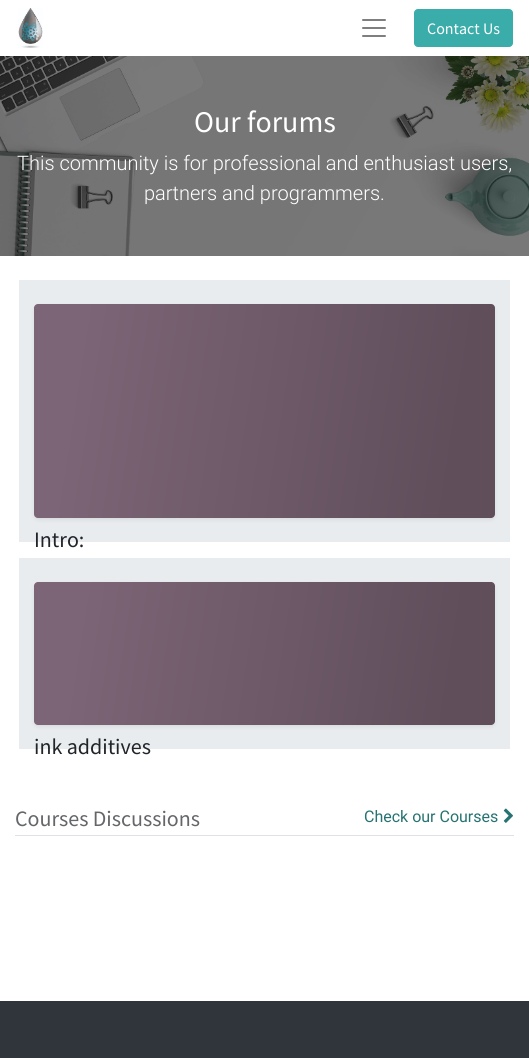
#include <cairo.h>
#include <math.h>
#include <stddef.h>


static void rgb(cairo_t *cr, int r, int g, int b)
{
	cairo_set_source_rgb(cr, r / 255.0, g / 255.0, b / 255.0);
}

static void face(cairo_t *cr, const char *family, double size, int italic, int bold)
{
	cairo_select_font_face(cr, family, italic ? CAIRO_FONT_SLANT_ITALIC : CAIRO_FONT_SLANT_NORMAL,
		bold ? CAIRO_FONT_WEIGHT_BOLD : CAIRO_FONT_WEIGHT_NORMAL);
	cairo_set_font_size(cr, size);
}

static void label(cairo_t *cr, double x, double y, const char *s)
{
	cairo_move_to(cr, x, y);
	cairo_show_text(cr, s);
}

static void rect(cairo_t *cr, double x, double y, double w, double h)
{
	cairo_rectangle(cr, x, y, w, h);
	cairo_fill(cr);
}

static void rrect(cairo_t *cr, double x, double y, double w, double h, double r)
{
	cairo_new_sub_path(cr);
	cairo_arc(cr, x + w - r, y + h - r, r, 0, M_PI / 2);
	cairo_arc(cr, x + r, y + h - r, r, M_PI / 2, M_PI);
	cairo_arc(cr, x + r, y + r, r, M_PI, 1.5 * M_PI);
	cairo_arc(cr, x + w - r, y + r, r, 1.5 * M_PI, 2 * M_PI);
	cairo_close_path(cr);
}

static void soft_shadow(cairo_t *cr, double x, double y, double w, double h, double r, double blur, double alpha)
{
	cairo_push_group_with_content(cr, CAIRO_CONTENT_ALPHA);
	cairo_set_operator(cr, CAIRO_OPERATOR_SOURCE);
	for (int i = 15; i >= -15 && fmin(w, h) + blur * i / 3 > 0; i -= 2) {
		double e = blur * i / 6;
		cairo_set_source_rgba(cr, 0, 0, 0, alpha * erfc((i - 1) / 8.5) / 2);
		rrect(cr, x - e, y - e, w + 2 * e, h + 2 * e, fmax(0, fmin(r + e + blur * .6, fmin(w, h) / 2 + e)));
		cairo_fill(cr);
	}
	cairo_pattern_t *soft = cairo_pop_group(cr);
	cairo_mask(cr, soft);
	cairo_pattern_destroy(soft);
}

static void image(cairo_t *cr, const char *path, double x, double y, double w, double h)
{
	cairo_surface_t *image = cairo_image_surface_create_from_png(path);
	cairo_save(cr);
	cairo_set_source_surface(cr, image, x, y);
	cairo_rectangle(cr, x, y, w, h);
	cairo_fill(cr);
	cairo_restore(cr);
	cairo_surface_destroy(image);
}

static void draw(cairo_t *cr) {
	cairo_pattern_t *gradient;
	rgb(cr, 255, 255, 255);
	cairo_paint(cr);
	image(cr, "image0.png", 18, 8, 25, 40);
	image(cr, "image1.png", 362, 19, 24, 18);
	rgb(cr, 58, 173, 170);
	rrect(cr, 414.5, 9.5, 98, 37, 3.5);
	cairo_fill_preserve(cr);
	cairo_set_line_width(cr, 1);
	cairo_stroke(cr);
	face(cr, "Source Sans Pro", 16, 0, 0);
	rgb(cr, 255, 255, 255);
	label(cr, 427, 34, "Contact Us");
	image(cr, "image2.png", 0, 56, 529, 200);
	face(cr, "Source Sans Pro", 30, 0, 0);
	label(cr, 194, 132, "Our forums");
	face(cr, "Roboto Light", 20, 0, 0);
	label(cr, 17, 170, "This community is for professional and enthusiast users,");
	label(cr, 144, 200, "partners and programmers.");
	rgb(cr, 233, 236, 239);
	rect(cr, 19, 280, 491, 262);
	rgb(cr, 0, 0, 0);
	soft_shadow(cr, 34, 306, 461, 214, 4, 2, 0.07);
	gradient = cairo_pattern_create_linear(23, 373, 506, 449);
	cairo_pattern_add_color_stop_rgba(gradient, 0.1, 0.486, 0.396, 0.463, 1);
	cairo_pattern_add_color_stop_rgba(gradient, 0.9, 0.376, 0.306, 0.357, 1);
	cairo_set_source(cr, gradient);
	cairo_pattern_destroy(gradient);
	rrect(cr, 34, 304, 461, 214, 4);
	cairo_fill(cr);
	face(cr, "Source Sans Pro", 22, 0, 0);
	rgb(cr, 33, 37, 41);
	label(cr, 34, 547, "Intro:");
	rgb(cr, 233, 236, 239);
	rect(cr, 19, 558, 491, 191);
	rgb(cr, 0, 0, 0);
	soft_shadow(cr, 34, 584, 461, 143, 4, 2, 0.07);
	gradient = cairo_pattern_create_linear(29, 616, 500, 691);
	cairo_pattern_add_color_stop_rgba(gradient, 0.1, 0.486, 0.396, 0.463, 1);
	cairo_pattern_add_color_stop_rgba(gradient, 0.9, 0.376, 0.306, 0.357, 1);
	cairo_set_source(cr, gradient);
	cairo_pattern_destroy(gradient);
	rrect(cr, 34, 582, 461, 143, 4);
	cairo_fill(cr);
	rgb(cr, 33, 37, 41);
	label(cr, 34, 754, "ink additives");
	rgb(cr, 222, 226, 230);
	rect(cr, 15, 835, 499, 1);
	rgb(cr, 100, 102, 105);
	label(cr, 15, 826, "Courses Discussions");
	face(cr, "Roboto", 16, 0, 0);
	rgb(cr, 38, 115, 114);
	label(cr, 364, 822, "Check our Courses");
	image(cr, "image3.png", 503, 808, 10, 15);
	rgb(cr, 48, 53, 59);
	rect(cr, 0, 1001, 529, 57);
}

int main(void) {
	cairo_surface_t *surface = cairo_image_surface_create(CAIRO_FORMAT_RGB24, 529, 1058);
	cairo_t *cr = cairo_create(surface);
	cairo_font_options_t *options = cairo_font_options_create();
	cairo_font_options_set_hint_metrics(options, CAIRO_HINT_METRICS_OFF);
	cairo_font_options_set_hint_style(options, CAIRO_HINT_STYLE_NONE);
	cairo_set_font_options(cr, options);
	cairo_set_miter_limit(cr, 4);
	draw(cr);
	cairo_surface_write_to_png(surface, "render.png");
	cairo_font_options_destroy(options);
	cairo_destroy(cr);
	cairo_surface_destroy(surface);
	return 0;
}
